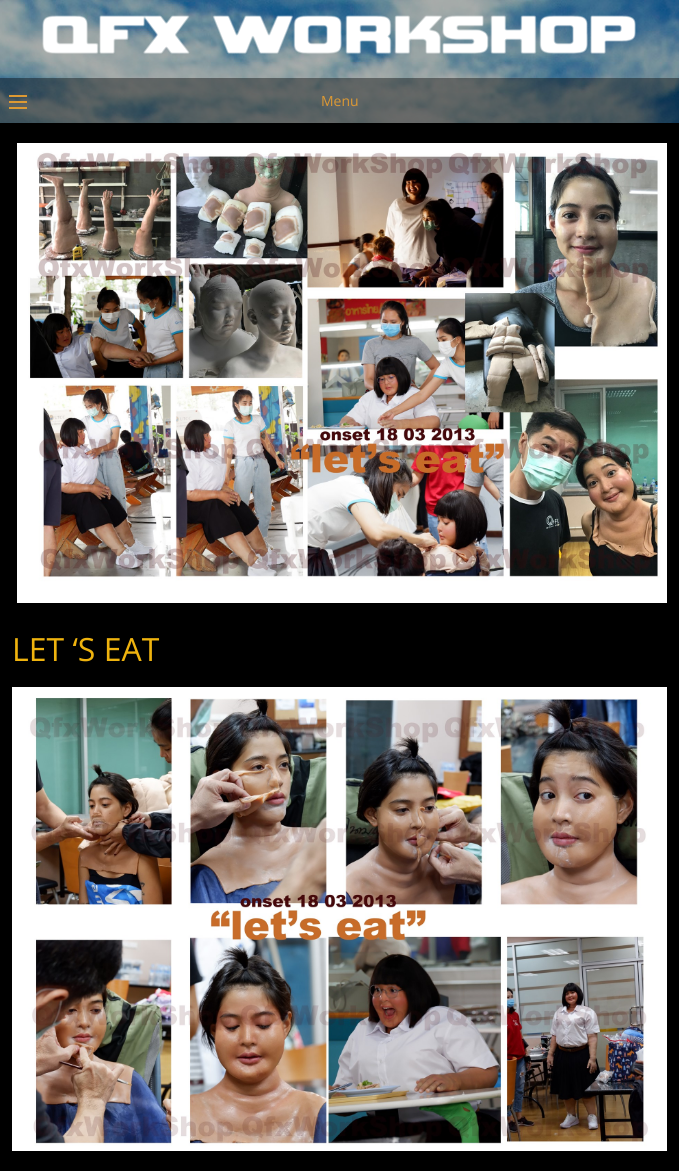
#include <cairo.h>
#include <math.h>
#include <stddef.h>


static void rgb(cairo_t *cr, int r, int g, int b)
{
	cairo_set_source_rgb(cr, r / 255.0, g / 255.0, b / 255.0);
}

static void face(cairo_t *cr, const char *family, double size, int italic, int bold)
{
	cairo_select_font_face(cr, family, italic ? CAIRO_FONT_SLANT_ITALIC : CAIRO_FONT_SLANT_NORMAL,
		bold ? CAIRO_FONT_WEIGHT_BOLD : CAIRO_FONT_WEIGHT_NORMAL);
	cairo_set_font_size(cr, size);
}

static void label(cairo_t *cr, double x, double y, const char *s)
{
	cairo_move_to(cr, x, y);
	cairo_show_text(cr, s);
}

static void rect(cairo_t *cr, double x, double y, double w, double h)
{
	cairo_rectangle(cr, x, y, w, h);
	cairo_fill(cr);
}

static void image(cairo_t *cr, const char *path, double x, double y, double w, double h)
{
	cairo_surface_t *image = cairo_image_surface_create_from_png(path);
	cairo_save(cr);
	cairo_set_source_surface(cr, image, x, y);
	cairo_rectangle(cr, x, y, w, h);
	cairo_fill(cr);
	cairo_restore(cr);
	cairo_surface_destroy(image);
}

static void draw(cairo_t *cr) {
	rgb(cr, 0, 0, 0);
	cairo_paint(cr);
	image(cr, "image0.png", 0, 0, 679, 123);
	image(cr, "image1.png", 42, 15, 594, 39);
	cairo_set_source_rgba(cr, 0, 0, 0, 0.4);
	rect(cr, 0, 78, 679, 45);
	rgb(cr, 221, 153, 51);
	rect(cr, 9, 107, 18, 2);
	rect(cr, 9, 101, 18, 2);
	rect(cr, 9, 95, 18, 2);
	face(cr, "Open Sans", 14, 0, 0);
	label(cr, 321, 106, "Menu");
	image(cr, "image2.png", 17, 143, 650, 460);
	face(cr, "Open Sans", 32, 0, 0);
	rgb(cr, 239, 179, 14);
	label(cr, 12, 661, "LET ‘S EAT");
	image(cr, "image3.png", 12, 687, 655, 464);
}

int main(void) {
	cairo_surface_t *surface = cairo_image_surface_create(CAIRO_FORMAT_RGB24, 679, 1171);
	cairo_t *cr = cairo_create(surface);
	cairo_font_options_t *options = cairo_font_options_create();
	cairo_font_options_set_hint_metrics(options, CAIRO_HINT_METRICS_OFF);
	cairo_font_options_set_hint_style(options, CAIRO_HINT_STYLE_NONE);
	cairo_set_font_options(cr, options);
	cairo_set_miter_limit(cr, 4);
	draw(cr);
	cairo_surface_write_to_png(surface, "render.png");
	cairo_font_options_destroy(options);
	cairo_destroy(cr);
	cairo_surface_destroy(surface);
	return 0;
}
